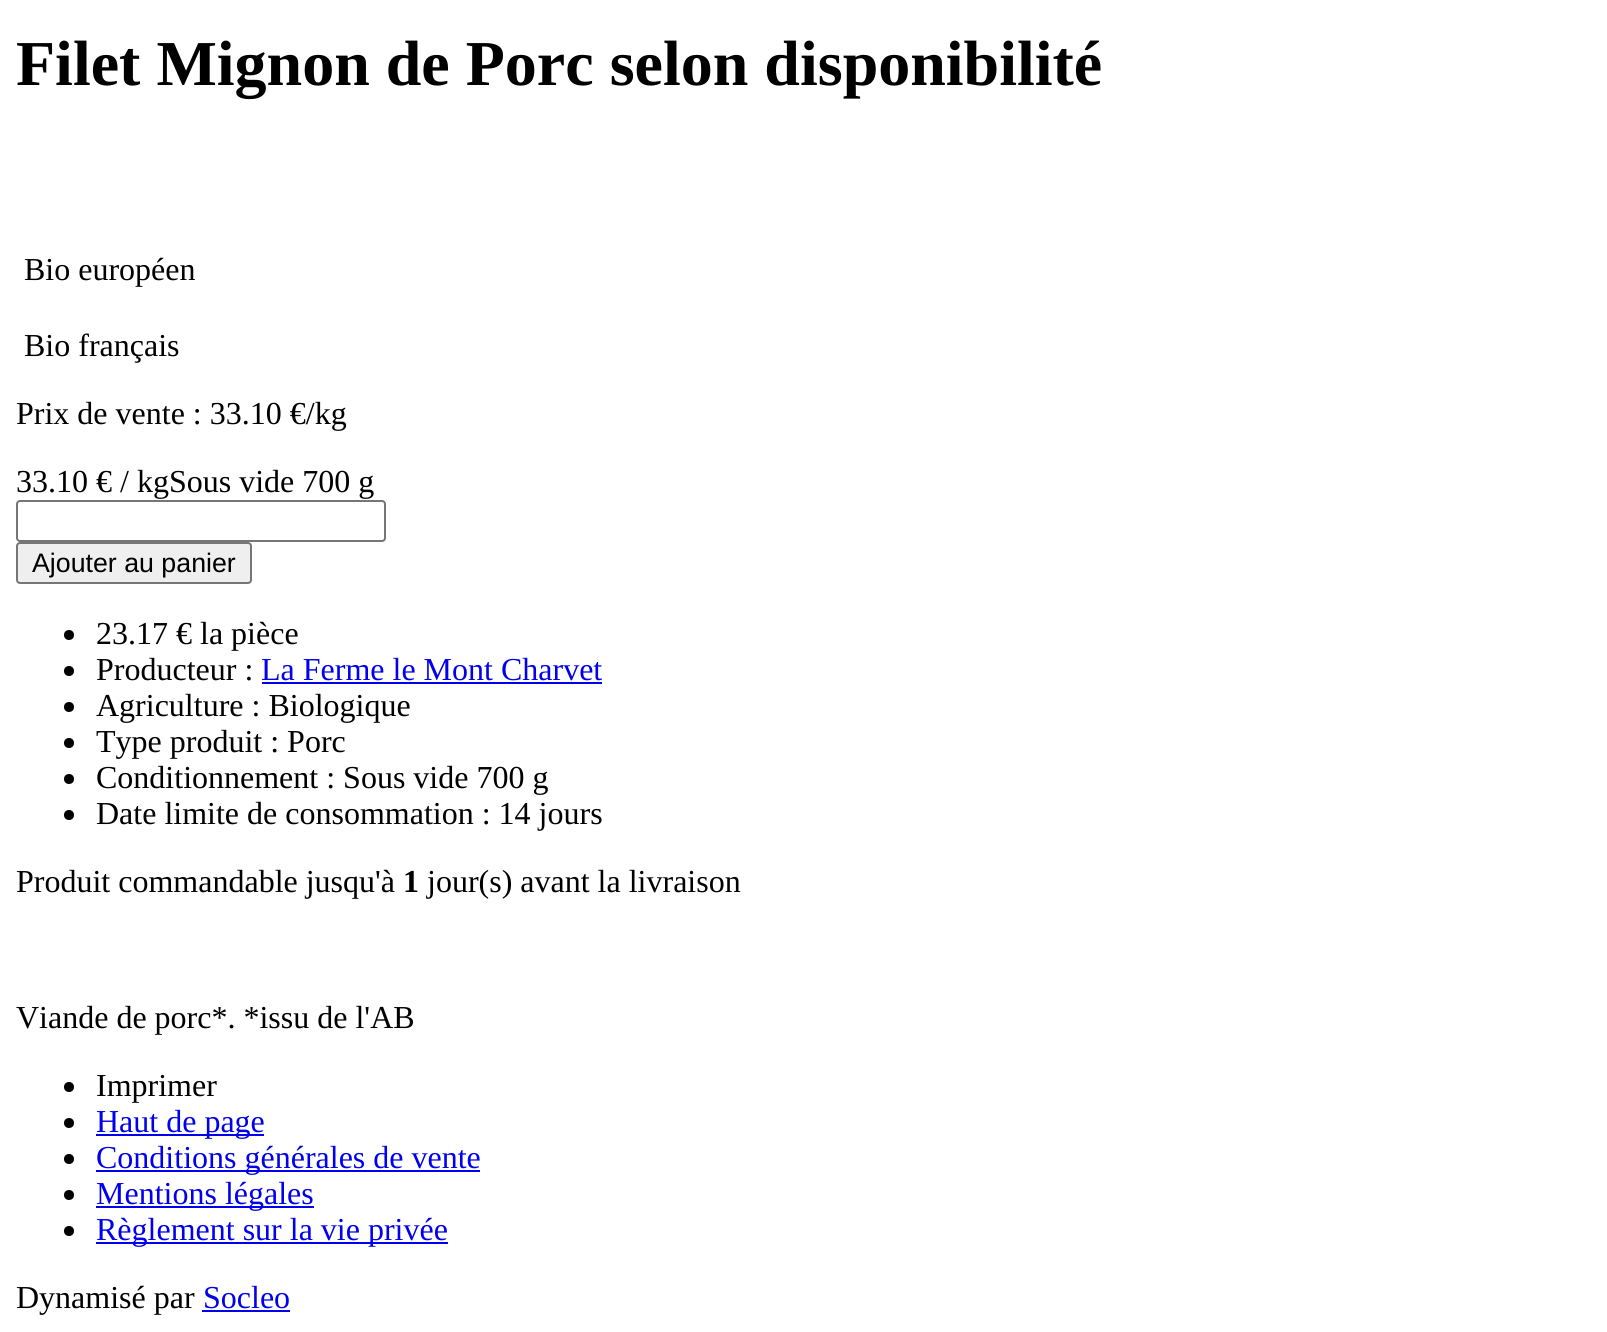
#include <cairo.h>
#include <math.h>
#include <stddef.h>


static void rgb(cairo_t *cr, int r, int g, int b)
{
	cairo_set_source_rgb(cr, r / 255.0, g / 255.0, b / 255.0);
}

static void face(cairo_t *cr, const char *family, double size, int italic, int bold)
{
	cairo_select_font_face(cr, family, italic ? CAIRO_FONT_SLANT_ITALIC : CAIRO_FONT_SLANT_NORMAL,
		bold ? CAIRO_FONT_WEIGHT_BOLD : CAIRO_FONT_WEIGHT_NORMAL);
	cairo_set_font_size(cr, size);
}

static void label(cairo_t *cr, double x, double y, const char *s)
{
	cairo_move_to(cr, x, y);
	cairo_show_text(cr, s);
}

static void rect(cairo_t *cr, double x, double y, double w, double h)
{
	cairo_rectangle(cr, x, y, w, h);
	cairo_fill(cr);
}

static void rrect(cairo_t *cr, double x, double y, double w, double h, double r)
{
	cairo_new_sub_path(cr);
	cairo_arc(cr, x + w - r, y + h - r, r, 0, M_PI / 2);
	cairo_arc(cr, x + r, y + h - r, r, M_PI / 2, M_PI);
	cairo_arc(cr, x + r, y + r, r, M_PI, 1.5 * M_PI);
	cairo_arc(cr, x + w - r, y + r, r, 1.5 * M_PI, 2 * M_PI);
	cairo_close_path(cr);
}

static void draw(cairo_t *cr) {
	rgb(cr, 255, 255, 255);
	cairo_paint(cr);
	face(cr, "Liberation Serif", 64, 0, 1);
	rgb(cr, 0, 0, 0);
	label(cr, 16, 85, "Filet Mignon de Porc selon disponibilité");
	face(cr, "Liberation Serif", 32, 0, 0);
	label(cr, 24, 280, "Bio européen");
	label(cr, 24, 356, "Bio français");
	label(cr, 16, 424, "Prix de vente : 33.10 €/kg");
	label(cr, 16, 492, "33.10 € / kgSous vide 700 g");
	rrect(cr, 17, 501, 368, 40, 3);
	rgb(cr, 118, 118, 118);
	cairo_stroke(cr);
	rgb(cr, 239, 239, 239);
	rrect(cr, 17, 543, 234, 40, 3);
	cairo_fill_preserve(cr);
	rgb(cr, 118, 118, 118);
	cairo_stroke(cr);
	face(cr, "Liberation Sans", 26.75, 0, 0);
	rgb(cr, 0, 0, 0);
	label(cr, 32, 572, "Ajouter au panier");
	cairo_new_path(cr);
	cairo_arc(cr, 69, 635, 5, 0, 2 * M_PI);
	cairo_fill(cr);
	face(cr, "Liberation Serif", 32, 0, 0);
	label(cr, 96, 644, "23.17 € la pièce");
	cairo_new_path(cr);
	cairo_arc(cr, 69, 671, 5, 0, 2 * M_PI);
	cairo_fill(cr);
	label(cr, 96, 680, "Producteur :");
	rgb(cr, 0, 0, 238);
	label(cr, 261, 680, "La Ferme le Mont Charvet");
	rect(cr, 262, 682, 340, 2);
	rgb(cr, 0, 0, 0);
	cairo_new_path(cr);
	cairo_arc(cr, 69, 707, 5, 0, 2 * M_PI);
	cairo_fill(cr);
	label(cr, 96, 716, "Agriculture : Biologique");
	cairo_new_path(cr);
	cairo_arc(cr, 69, 743, 5, 0, 2 * M_PI);
	cairo_fill(cr);
	label(cr, 96, 752, "Type produit : Porc");
	cairo_new_path(cr);
	cairo_arc(cr, 69, 779, 5, 0, 2 * M_PI);
	cairo_fill(cr);
	label(cr, 96, 788, "Conditionnement : Sous vide 700 g");
	cairo_new_path(cr);
	cairo_arc(cr, 69, 815, 5, 0, 2 * M_PI);
	cairo_fill(cr);
	label(cr, 96, 824, "Date limite de consommation : 14 jours");
	label(cr, 16, 892, "Produit commandable jusqu'à");
	face(cr, "Liberation Serif", 32, 0, 1);
	label(cr, 403, 892, "1");
	face(cr, "Liberation Serif", 32, 0, 0);
	label(cr, 427, 892, "jour(s) avant la livraison");
	label(cr, 16, 1028, "Viande de porc*. *issu de l'AB");
	cairo_new_path(cr);
	cairo_arc(cr, 69, 1087, 5, 0, 2 * M_PI);
	cairo_fill(cr);
	label(cr, 96, 1096, "Imprimer");
	cairo_new_path(cr);
	cairo_arc(cr, 69, 1123, 5, 0, 2 * M_PI);
	cairo_fill(cr);
	rgb(cr, 0, 0, 238);
	rect(cr, 96, 1134, 168, 2);
	label(cr, 96, 1132, "Haut de page");
	rgb(cr, 0, 0, 0);
	cairo_new_path(cr);
	cairo_arc(cr, 69, 1159, 5, 0, 2 * M_PI);
	cairo_fill(cr);
	rgb(cr, 0, 0, 238);
	rect(cr, 96, 1170, 384, 2);
	label(cr, 96, 1168, "Conditions générales de vente");
	rgb(cr, 0, 0, 0);
	cairo_new_path(cr);
	cairo_arc(cr, 69, 1195, 5, 0, 2 * M_PI);
	cairo_fill(cr);
	rgb(cr, 0, 0, 238);
	rect(cr, 96, 1206, 218, 2);
	label(cr, 96, 1204, "Mentions légales");
	rgb(cr, 0, 0, 0);
	cairo_new_path(cr);
	cairo_arc(cr, 69, 1231, 5, 0, 2 * M_PI);
	cairo_fill(cr);
	rgb(cr, 0, 0, 238);
	rect(cr, 96, 1242, 352, 2);
	label(cr, 96, 1240, "Règlement sur la vie privée");
	rgb(cr, 0, 0, 0);
	label(cr, 16, 1308, "Dynamisé par");
	rgb(cr, 0, 0, 238);
	label(cr, 203, 1308, "Socleo");
	rect(cr, 202, 1310, 88, 2);
}

int main(void) {
	cairo_surface_t *surface = cairo_image_surface_create(CAIRO_FORMAT_RGB24, 1607, 1332);
	cairo_t *cr = cairo_create(surface);
	cairo_font_options_t *options = cairo_font_options_create();
	cairo_font_options_set_hint_metrics(options, CAIRO_HINT_METRICS_OFF);
	cairo_font_options_set_hint_style(options, CAIRO_HINT_STYLE_NONE);
	cairo_set_font_options(cr, options);
	cairo_set_miter_limit(cr, 4);
	draw(cr);
	cairo_surface_write_to_png(surface, "render.png");
	cairo_font_options_destroy(options);
	cairo_destroy(cr);
	cairo_surface_destroy(surface);
	return 0;
}
